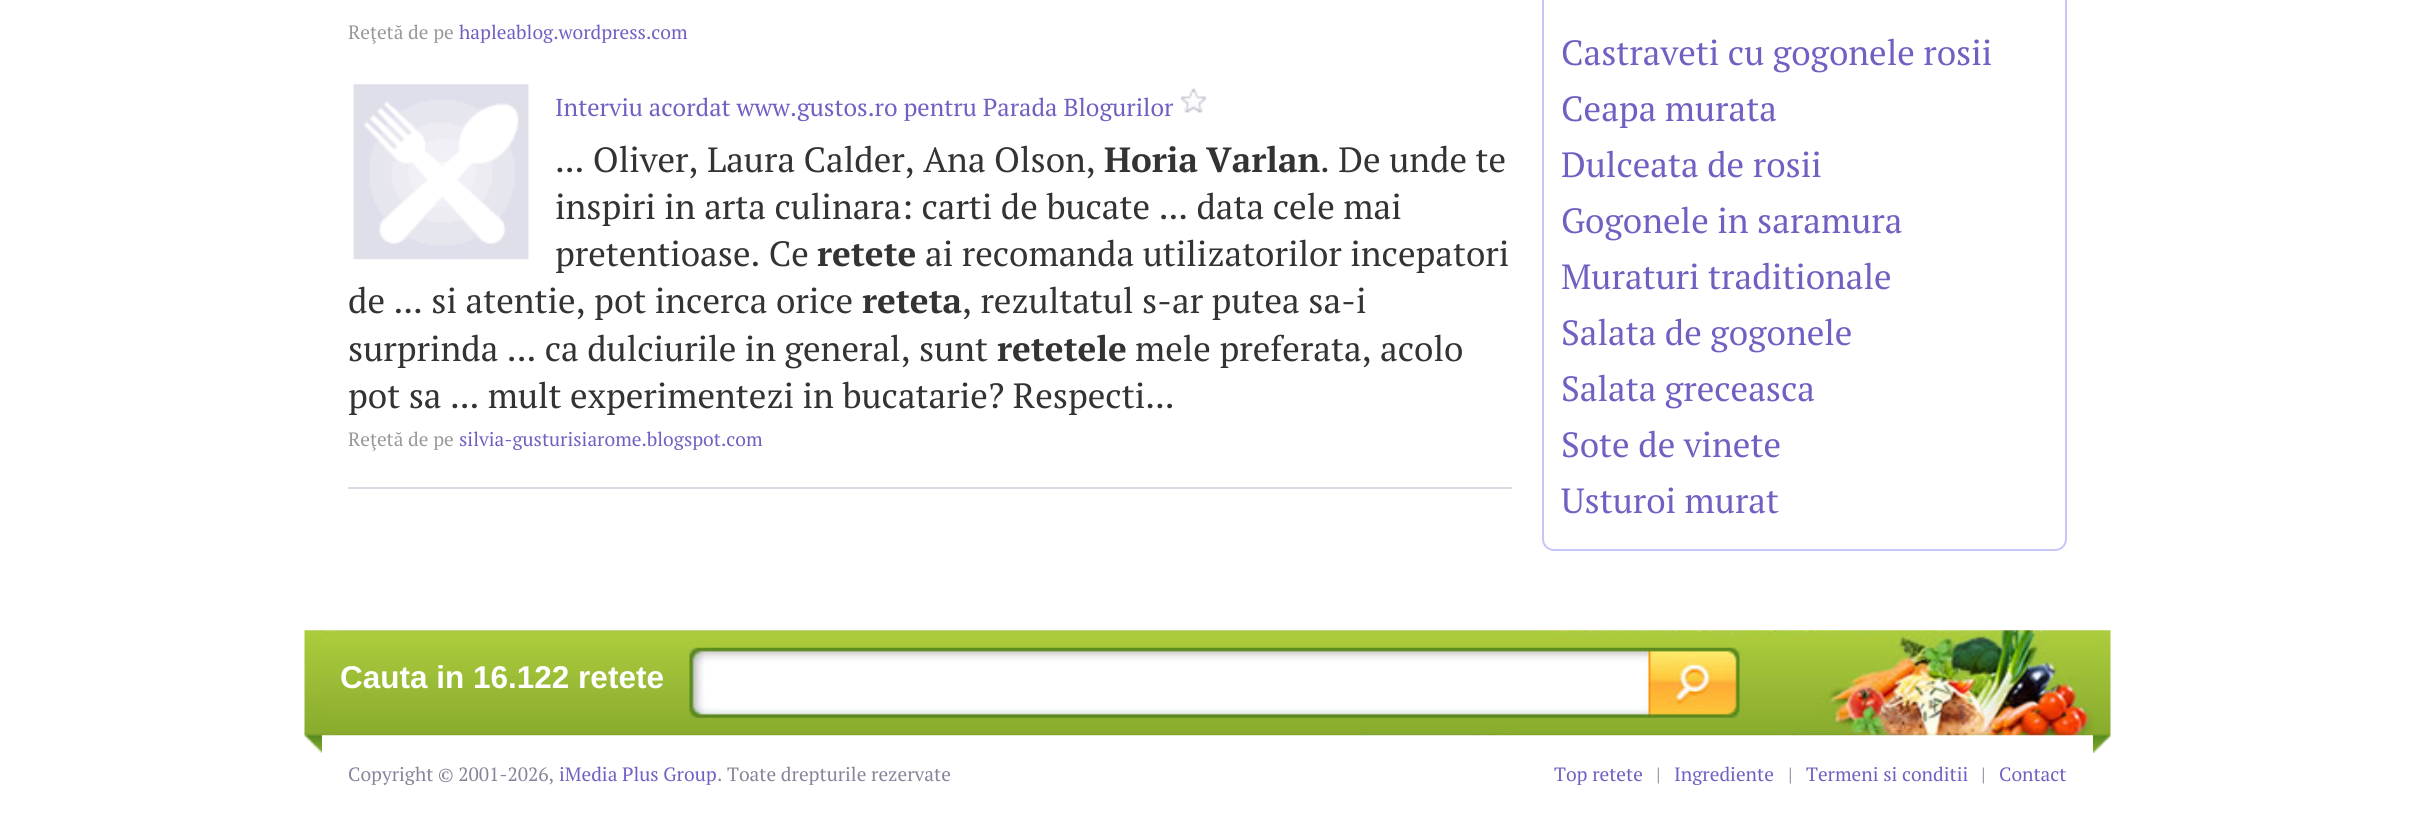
#include <cairo.h>
#include <math.h>
#include <stddef.h>


static void rgb(cairo_t *cr, int r, int g, int b)
{
	cairo_set_source_rgb(cr, r / 255.0, g / 255.0, b / 255.0);
}

static void face(cairo_t *cr, const char *family, double size, int italic, int bold)
{
	cairo_select_font_face(cr, family, italic ? CAIRO_FONT_SLANT_ITALIC : CAIRO_FONT_SLANT_NORMAL,
		bold ? CAIRO_FONT_WEIGHT_BOLD : CAIRO_FONT_WEIGHT_NORMAL);
	cairo_set_font_size(cr, size);
}

static void label(cairo_t *cr, double x, double y, const char *s)
{
	cairo_move_to(cr, x, y);
	cairo_show_text(cr, s);
}

static void rect(cairo_t *cr, double x, double y, double w, double h)
{
	cairo_rectangle(cr, x, y, w, h);
	cairo_fill(cr);
}

static void rrect(cairo_t *cr, double x, double y, double w, double h, double r)
{
	cairo_new_sub_path(cr);
	cairo_arc(cr, x + w - r, y + h - r, r, 0, M_PI / 2);
	cairo_arc(cr, x + r, y + h - r, r, M_PI / 2, M_PI);
	cairo_arc(cr, x + r, y + r, r, M_PI, 1.5 * M_PI);
	cairo_arc(cr, x + w - r, y + r, r, 1.5 * M_PI, 2 * M_PI);
	cairo_close_path(cr);
}

static void image(cairo_t *cr, const char *path, double x, double y, double w, double h)
{
	cairo_surface_t *image = cairo_image_surface_create_from_png(path);
	cairo_save(cr);
	cairo_set_source_surface(cr, image, x, y);
	cairo_rectangle(cr, x, y, w, h);
	cairo_fill(cr);
	cairo_restore(cr);
	cairo_surface_destroy(image);
}

static void draw(cairo_t *cr) {
	rgb(cr, 255, 255, 255);
	cairo_paint(cr);
	face(cr, "PT Serif", 19.25, 0, 0);
	rgb(cr, 153, 153, 153);
	label(cr, 348, 39, "Reţetă de pe");
	rgb(cr, 115, 95, 194);
	label(cr, 459, 39, "hapleablog.wordpress.com");
	image(cr, "image0.png", 353, 84, 176, 176);
	face(cr, "PT Serif", 24.5, 0, 0);
	label(cr, 555, 116, "Interviu acordat www.gustos.ro pentru Parada Blogurilor");
	image(cr, "image1.png", 1181, 87, 25, 26);
	face(cr, "PT Serif", 35, 0, 0);
	rgb(cr, 51, 51, 51);
	label(cr, 555, 172, "... Oliver, Laura Calder, Ana Olson,");
	face(cr, "PT Serif", 35, 0, 1);
	label(cr, 1104, 172, "Horia");
	label(cr, 1206, 172, "Varlan");
	face(cr, "PT Serif", 35, 0, 0);
	label(cr, 1320, 172, ". De unde te");
	label(cr, 555, 219, "inspiri in arta culinara: carti de bucate ... data cele mai");
	label(cr, 555, 266, "pretentioase. Ce");
	face(cr, "PT Serif", 35, 0, 1);
	label(cr, 817, 266, "retete");
	face(cr, "PT Serif", 35, 0, 0);
	label(cr, 925, 266, "ai recomanda utilizatorilor incepatori");
	label(cr, 348, 313, "de ... si atentie, pot incerca orice");
	face(cr, "PT Serif", 35, 0, 1);
	label(cr, 862, 313, "reteta");
	face(cr, "PT Serif", 35, 0, 0);
	label(cr, 962, 313, ", rezultatul s-ar putea sa-i");
	label(cr, 348, 361, "surprinda ... ca dulciurile in general, sunt");
	face(cr, "PT Serif", 35, 0, 1);
	label(cr, 997, 361, "retetele");
	face(cr, "PT Serif", 35, 0, 0);
	label(cr, 1135, 361, "mele preferata, acolo");
	label(cr, 348, 408, "pot sa ... mult experimentezi in bucatarie? Respecti...");
	face(cr, "PT Serif", 19.25, 0, 0);
	rgb(cr, 153, 153, 153);
	label(cr, 348, 446, "Reţetă de pe");
	rgb(cr, 115, 95, 194);
	label(cr, 459, 446, "silvia-gusturisiarome.blogspot.com");
	rgb(cr, 219, 219, 227);
	rect(cr, 348, 487, 1164, 2);
	rrect(cr, 1543, -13, 523, 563, 11);
	rgb(cr, 200, 197, 251);
	cairo_stroke(cr);
	face(cr, "PT Serif", 35, 0, 0);
	rgb(cr, 115, 95, 194);
	label(cr, 1561, 65, "Castraveti cu gogonele rosii");
	label(cr, 1561, 121, "Ceapa murata");
	label(cr, 1561, 177, "Dulceata de rosii");
	label(cr, 1561, 233, "Gogonele in saramura");
	label(cr, 1561, 289, "Muraturi traditionale");
	label(cr, 1561, 345, "Salata de gogonele");
	label(cr, 1561, 401, "Salata greceasca");
	label(cr, 1561, 457, "Sote de vinete");
	label(cr, 1561, 513, "Usturoi murat");
	image(cr, "image2.png", 304, 630, 18, 123);
	image(cr, "image3.png", 322, 630, 1771, 106);
	face(cr, "Liberation Sans", 31.5, 0, 1);
	rgb(cr, 255, 255, 255);
	label(cr, 340, 688, "Cauta in 16.122 retete");
	image(cr, "image4.png", 689, 647, 1051, 71);
	image(cr, "image5.png", 2093, 630, 18, 123);
	face(cr, "PT Serif", 19.25, 0, 0);
	rgb(cr, 134, 133, 154);
	label(cr, 348, 781, "Copyright © 2001-2026,");
	rgb(cr, 115, 95, 194);
	label(cr, 559, 781, "iMedia Plus Group");
	rgb(cr, 134, 133, 154);
	label(cr, 717, 781, ". Toate drepturile rezervate");
	rgb(cr, 115, 95, 194);
	label(cr, 1554, 781, "Top retete");
	rgb(cr, 134, 133, 154);
	label(cr, 1656, 781, "|");
	rgb(cr, 115, 95, 194);
	label(cr, 1674, 781, "Ingrediente");
	rgb(cr, 134, 133, 154);
	label(cr, 1788, 781, "|");
	rgb(cr, 115, 95, 194);
	label(cr, 1806, 781, "Termeni si conditii");
	rgb(cr, 134, 133, 154);
	label(cr, 1981, 781, "|");
	rgb(cr, 115, 95, 194);
	label(cr, 1999, 781, "Contact");
}

int main(void) {
	cairo_surface_t *surface = cairo_image_surface_create(CAIRO_FORMAT_RGB24, 2414, 825);
	cairo_t *cr = cairo_create(surface);
	cairo_font_options_t *options = cairo_font_options_create();
	cairo_font_options_set_hint_metrics(options, CAIRO_HINT_METRICS_OFF);
	cairo_font_options_set_hint_style(options, CAIRO_HINT_STYLE_NONE);
	cairo_set_font_options(cr, options);
	cairo_set_miter_limit(cr, 4);
	draw(cr);
	cairo_surface_write_to_png(surface, "render.png");
	cairo_font_options_destroy(options);
	cairo_destroy(cr);
	cairo_surface_destroy(surface);
	return 0;
}
